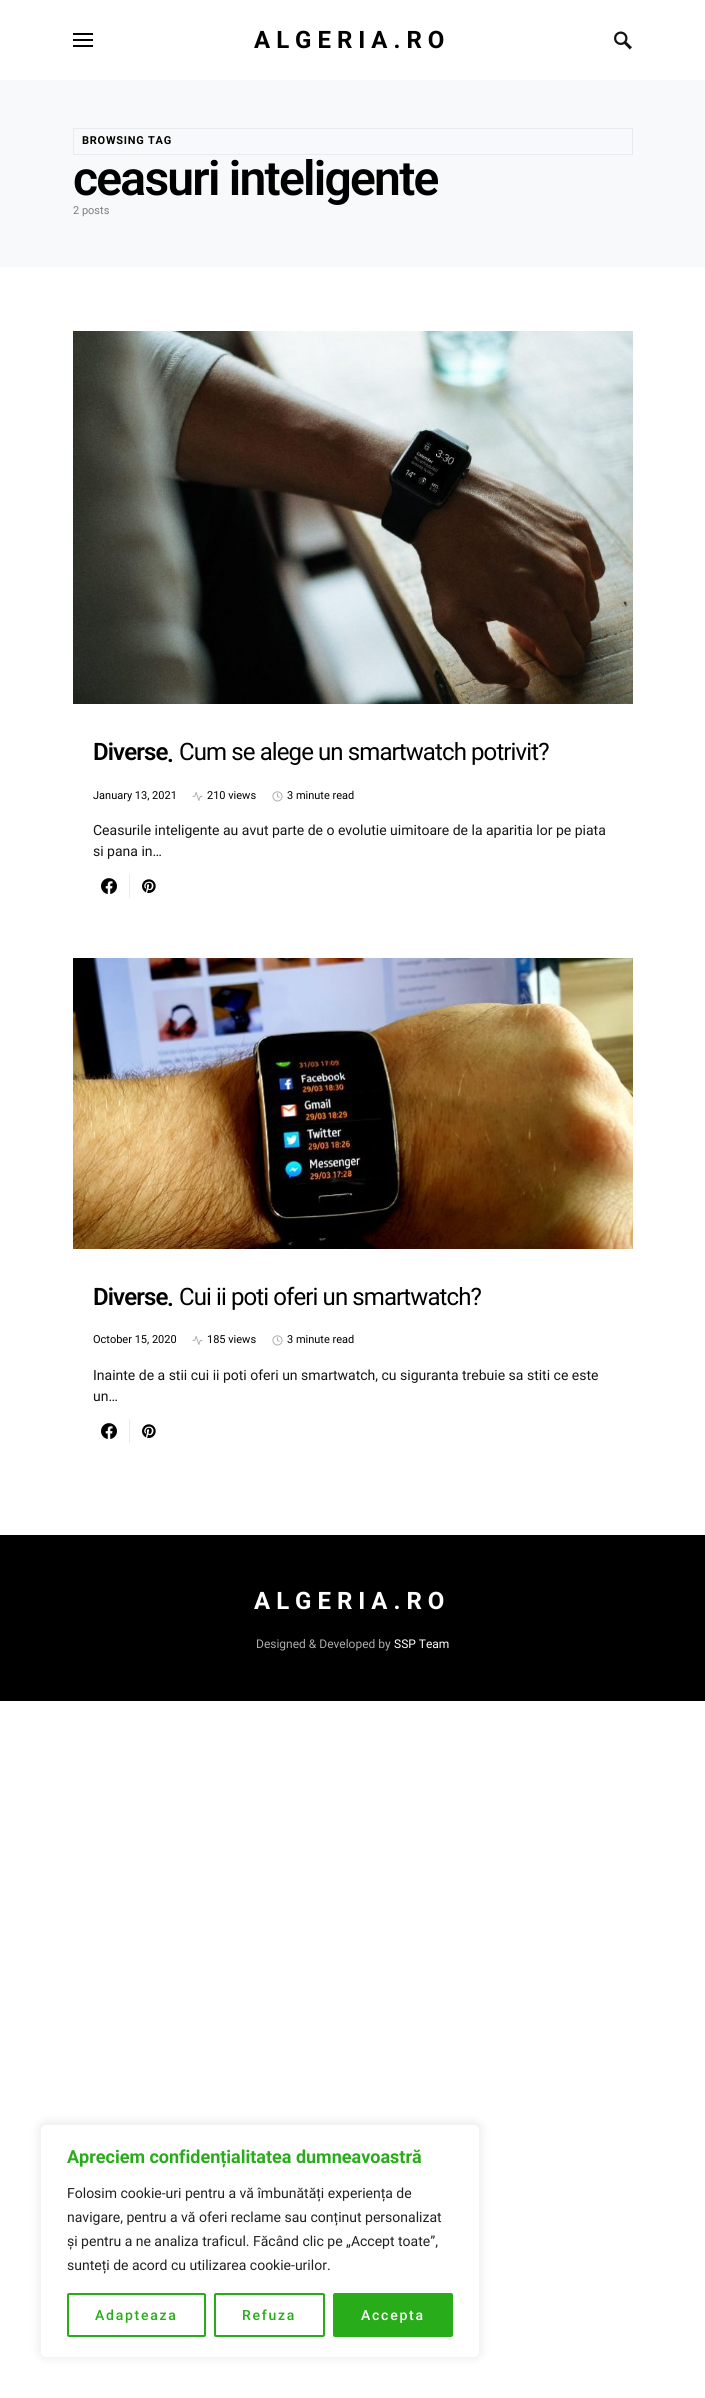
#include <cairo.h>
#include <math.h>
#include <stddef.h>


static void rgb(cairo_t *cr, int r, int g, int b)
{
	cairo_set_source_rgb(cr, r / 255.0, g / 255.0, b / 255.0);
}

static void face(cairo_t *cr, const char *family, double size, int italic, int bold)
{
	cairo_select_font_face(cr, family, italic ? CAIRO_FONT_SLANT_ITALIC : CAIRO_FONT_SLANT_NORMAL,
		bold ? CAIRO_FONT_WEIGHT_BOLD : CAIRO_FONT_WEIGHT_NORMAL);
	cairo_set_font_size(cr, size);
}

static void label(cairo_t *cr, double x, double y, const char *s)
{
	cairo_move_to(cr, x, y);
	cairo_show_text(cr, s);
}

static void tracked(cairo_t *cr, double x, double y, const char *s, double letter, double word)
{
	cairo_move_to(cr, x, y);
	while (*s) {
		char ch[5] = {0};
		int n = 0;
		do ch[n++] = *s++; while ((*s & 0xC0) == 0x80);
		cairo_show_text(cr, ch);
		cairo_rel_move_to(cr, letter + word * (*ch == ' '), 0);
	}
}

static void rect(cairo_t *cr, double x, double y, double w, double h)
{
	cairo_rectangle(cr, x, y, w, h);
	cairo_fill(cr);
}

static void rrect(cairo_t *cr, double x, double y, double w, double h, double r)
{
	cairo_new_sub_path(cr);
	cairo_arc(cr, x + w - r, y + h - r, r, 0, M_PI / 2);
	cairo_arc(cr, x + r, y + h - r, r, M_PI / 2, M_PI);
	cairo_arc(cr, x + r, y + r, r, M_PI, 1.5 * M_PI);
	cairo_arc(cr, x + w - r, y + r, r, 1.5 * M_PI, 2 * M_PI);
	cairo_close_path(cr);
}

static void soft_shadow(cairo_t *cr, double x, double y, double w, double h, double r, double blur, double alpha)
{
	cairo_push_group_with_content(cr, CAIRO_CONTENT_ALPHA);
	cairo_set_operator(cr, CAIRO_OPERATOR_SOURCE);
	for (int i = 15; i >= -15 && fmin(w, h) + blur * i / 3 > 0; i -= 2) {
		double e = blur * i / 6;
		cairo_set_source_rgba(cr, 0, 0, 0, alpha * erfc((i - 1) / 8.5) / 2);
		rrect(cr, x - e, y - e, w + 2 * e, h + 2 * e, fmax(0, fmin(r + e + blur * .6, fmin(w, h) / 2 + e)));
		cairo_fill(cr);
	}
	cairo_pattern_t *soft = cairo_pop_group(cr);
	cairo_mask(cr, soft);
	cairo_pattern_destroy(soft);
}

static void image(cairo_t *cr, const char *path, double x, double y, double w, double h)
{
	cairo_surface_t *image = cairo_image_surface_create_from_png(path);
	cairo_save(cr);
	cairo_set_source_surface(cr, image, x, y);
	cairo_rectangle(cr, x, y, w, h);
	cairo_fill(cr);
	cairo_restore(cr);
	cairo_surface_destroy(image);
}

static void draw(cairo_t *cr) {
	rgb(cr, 255, 255, 255);
	cairo_paint(cr);
	rgb(cr, 0, 0, 0);
	rect(cr, 73, 33, 20, 2);
	rect(cr, 73, 39, 20, 2);
	rect(cr, 73, 45, 20, 2);
	face(cr, "Roboto", 24, 0, 1);
	tracked(cr, 254, 48, "ALGERIA.RO", 6, 0);
	image(cr, "image0.png", 614, 31, 18, 19);
	rgb(cr, 248, 249, 250);
	rect(cr, 0, 80, 705, 187);
	cairo_rectangle(cr, 73.5, 128.5, 559, 26);
	rgb(cr, 233, 236, 239);
	cairo_set_line_width(cr, 1);
	cairo_stroke(cr);
	face(cr, "Roboto", 11, 0, 1);
	rgb(cr, 0, 0, 0);
	tracked(cr, 82, 144, "BROWSING TAG", 0.75, 0);
	face(cr, "Roboto SemiBold", 48, 0, 0);
	tracked(cr, 73, 195, "ceasuri inteligente", -1.75, 0);
	face(cr, "Roboto", 11, 0, 0);
	rgb(cr, 124, 125, 125);
	label(cr, 73, 214, "2 posts");
	image(cr, "image1.png", 73, 331, 560, 373);
	face(cr, "Roboto SemiBold", 24, 0, 0);
	rgb(cr, 0, 0, 0);
	tracked(cr, 93, 760, "Diverse", -0.9, 0);
	tracked(cr, 167, 762, ".", -0.9, 0);
	face(cr, "Roboto", 24, 0, 0);
	tracked(cr, 179, 760, "Cum se alege un smartwatch potrivit?", -0.9, 0);
	face(cr, "Roboto", 11, 0, 0);
	label(cr, 93, 799, "January 13, 2021");
	image(cr, "image2.png", 192, 791, 11, 10);
	label(cr, 207, 799, "210 views");
	image(cr, "image3.png", 272, 791, 11, 11);
	label(cr, 287, 799, "3 minute read");
	face(cr, "Roboto", 14, 0, 0);
	rgb(cr, 18, 20, 22);
	label(cr, 93, 835, "Ceasurile inteligente au avut parte de o evolutie uimitoare de la aparitia lor pe piata");
	label(cr, 93, 856, "si pana in…");
	rgb(cr, 233, 236, 239);
	rect(cr, 129, 874, 1, 24);
	image(cr, "image4.png", 101, 878, 16, 16);
	image(cr, "image5.png", 142, 879, 14, 14);
	image(cr, "image6.png", 73, 958, 560, 291);
	face(cr, "Roboto SemiBold", 24, 0, 0);
	rgb(cr, 0, 0, 0);
	tracked(cr, 93, 1305, "Diverse", -0.9, 0);
	tracked(cr, 167, 1306, ".", -0.9, 0);
	face(cr, "Roboto", 24, 0, 0);
	tracked(cr, 179, 1305, "Cui ii poti oferi un smartwatch?", -0.9, 0);
	face(cr, "Roboto", 11, 0, 0);
	label(cr, 93, 1343, "October 15, 2020");
	image(cr, "image2.png", 192, 1335, 11, 10);
	label(cr, 207, 1343, "185 views");
	image(cr, "image3.png", 272, 1335, 11, 11);
	label(cr, 287, 1343, "3 minute read");
	face(cr, "Roboto", 14, 0, 0);
	rgb(cr, 18, 20, 22);
	label(cr, 93, 1380, "Inainte de a stii cui ii poti oferi un smartwatch, cu siguranta trebuie sa stiti ce este");
	label(cr, 93, 1401, "un…");
	rgb(cr, 233, 236, 239);
	rect(cr, 129, 1419, 1, 24);
	image(cr, "image4.png", 101, 1423, 16, 16);
	image(cr, "image5.png", 142, 1424, 14, 14);
	rgb(cr, 0, 0, 0);
	rect(cr, 0, 1535, 705, 166);
	face(cr, "Roboto", 24, 0, 1);
	rgb(cr, 255, 255, 255);
	tracked(cr, 254, 1609, "ALGERIA.RO", 6, 0);
	face(cr, "Roboto", 12, 0, 0);
	rgb(cr, 172, 172, 172);
	label(cr, 256, 1648, "Designed & Developed by");
	rgb(cr, 255, 255, 255);
	label(cr, 394, 1648, "SSP Team");
	rgb(cr, 172, 171, 171);
	soft_shadow(cr, 40, 2123, 440, 234, 6, 5, 0.3);
	rgb(cr, 255, 255, 255);
	rrect(cr, 40.5, 2124.5, 439, 233, 5.5);
	cairo_fill_preserve(cr);
	rgb(cr, 244, 244, 244);
	cairo_stroke(cr);
	face(cr, "Roboto", 18, 0, 1);
	rgb(cr, 41, 172, 26);
	label(cr, 67, 2163, "Apreciem confidențialitatea dumneavoastră");
	face(cr, "Roboto", 14, 0, 0);
	rgb(cr, 33, 33, 33);
	label(cr, 67, 2198, "Folosim cookie-uri pentru a vă îmbunătăți experiența de");
	label(cr, 67, 2222, "navigare, pentru a vă oferi reclame sau conținut personalizat");
	label(cr, 67, 2246, "și pentru a ne analiza traficul. Făcând clic pe „Accept toate”,");
	label(cr, 67, 2270, "sunteți de acord cu utilizarea cookie-urilor.");
	rrect(cr, 68, 2294, 137, 42, 1);
	rgb(cr, 41, 172, 26);
	cairo_set_line_width(cr, 2);
	cairo_stroke(cr);
	face(cr, "Roboto Medium", 14, 0, 0);
	tracked(cr, 95, 2320, "Adapteaza", 1.75, 0);
	rrect(cr, 215, 2294, 109, 42, 1);
	cairo_stroke(cr);
	tracked(cr, 242, 2320, "Refuza", 1.75, 0);
	rrect(cr, 334, 2294, 118, 42, 1);
	cairo_fill_preserve(cr);
	cairo_stroke(cr);
	rgb(cr, 255, 255, 255);
	tracked(cr, 361, 2320, "Accepta", 1.75, 0);
}

int main(void) {
	cairo_surface_t *surface = cairo_image_surface_create(CAIRO_FORMAT_RGB24, 705, 2398);
	cairo_t *cr = cairo_create(surface);
	cairo_font_options_t *options = cairo_font_options_create();
	cairo_font_options_set_hint_metrics(options, CAIRO_HINT_METRICS_OFF);
	cairo_font_options_set_hint_style(options, CAIRO_HINT_STYLE_NONE);
	cairo_set_font_options(cr, options);
	cairo_set_miter_limit(cr, 4);
	draw(cr);
	cairo_surface_write_to_png(surface, "render.png");
	cairo_font_options_destroy(options);
	cairo_destroy(cr);
	cairo_surface_destroy(surface);
	return 0;
}
